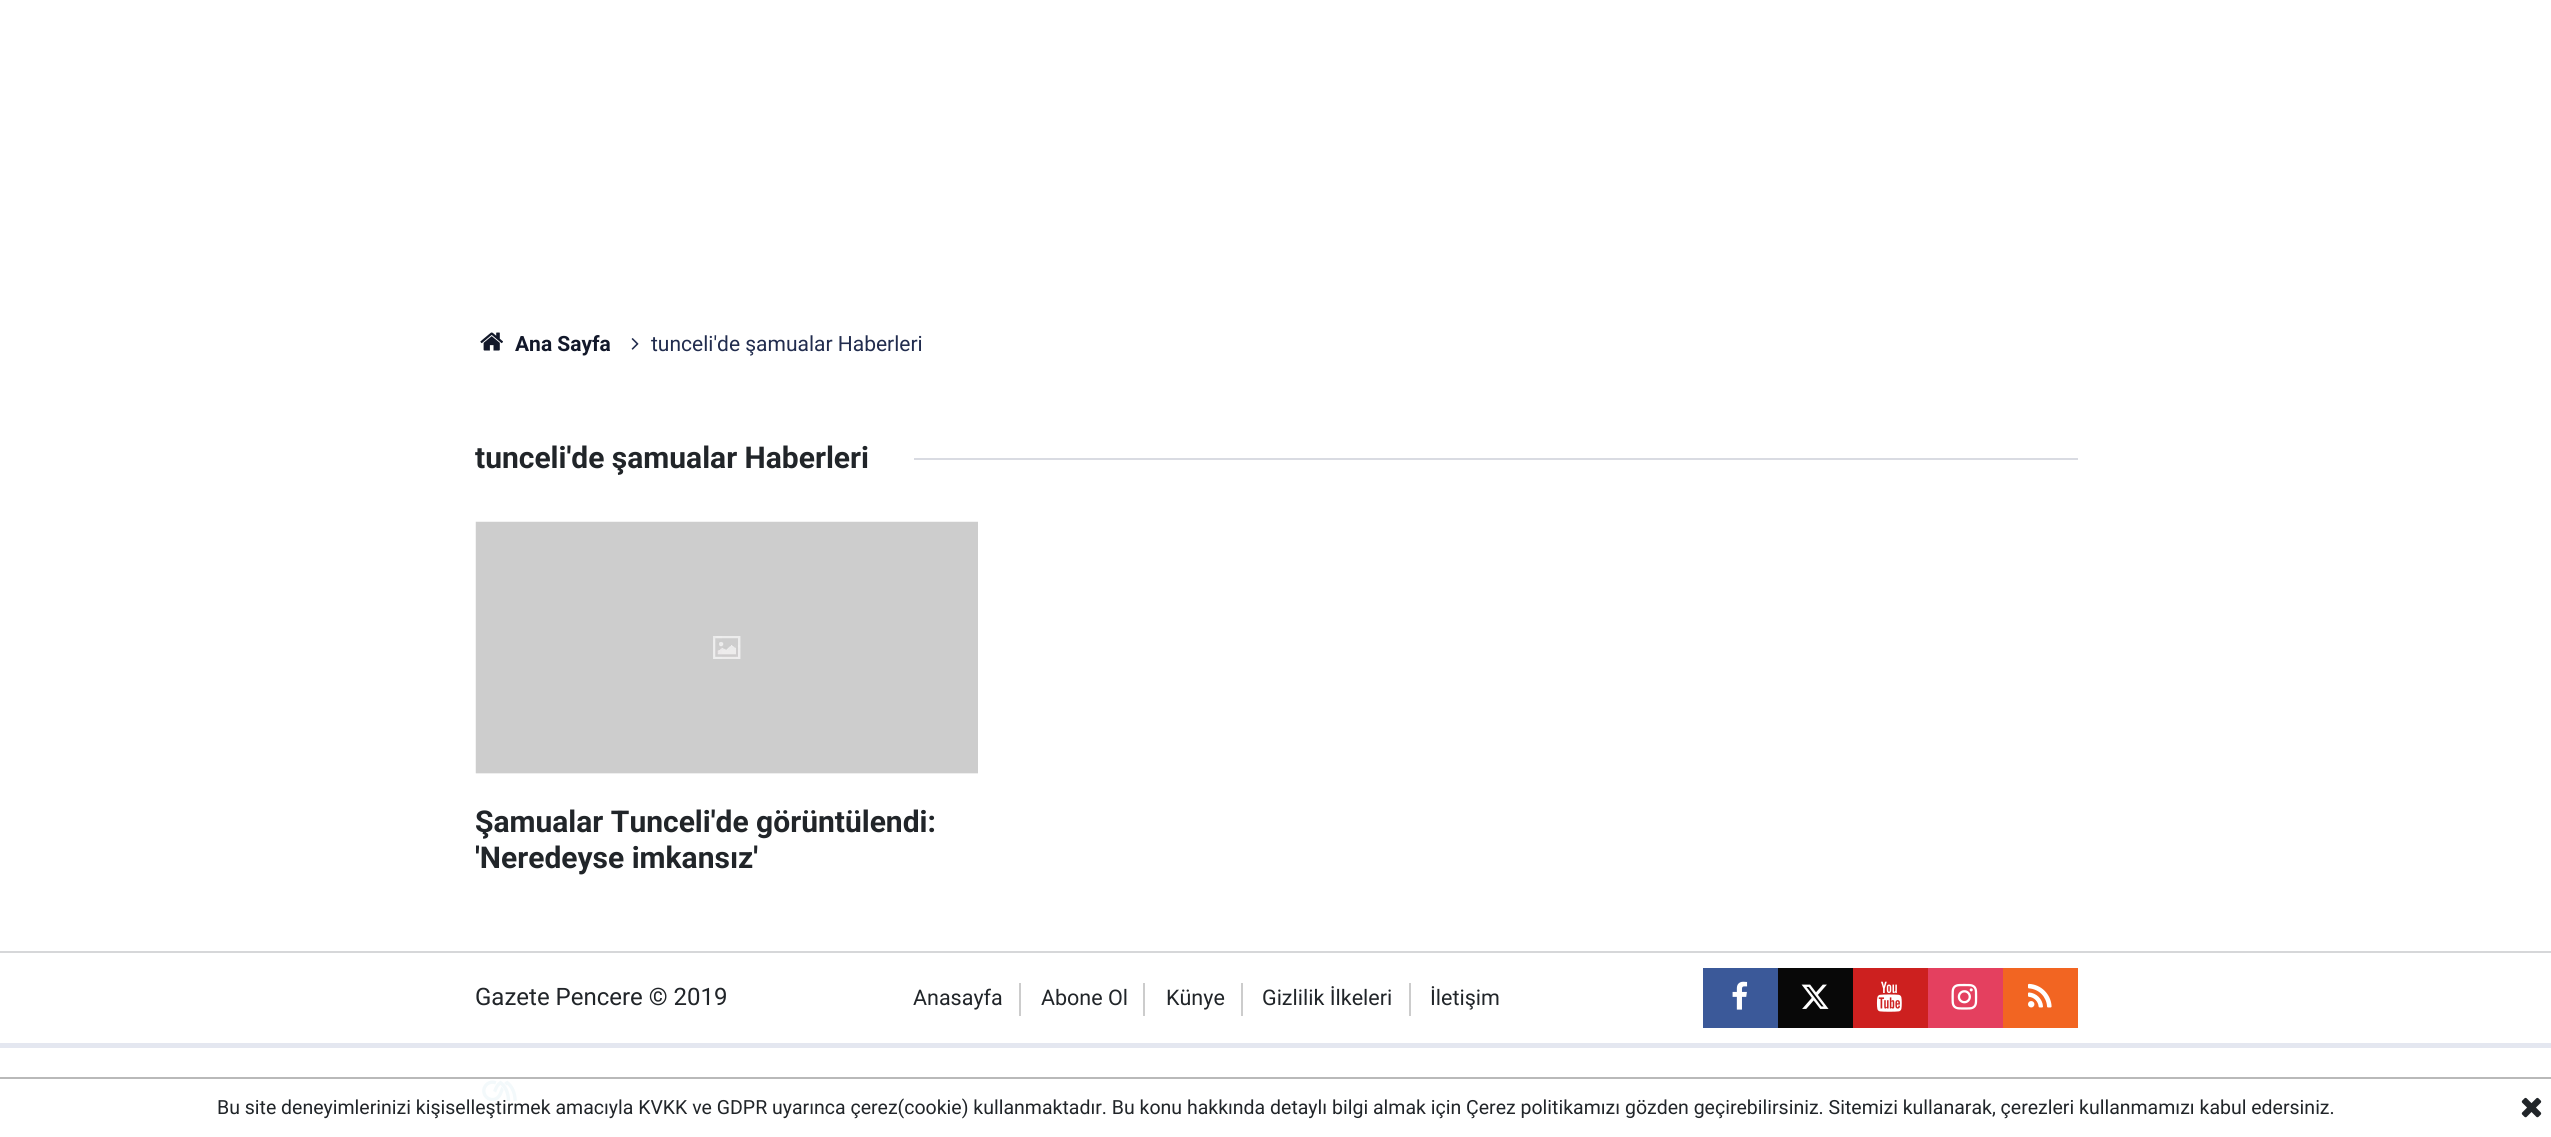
#include <cairo.h>
#include <math.h>
#include <stddef.h>


static void rgb(cairo_t *cr, int r, int g, int b)
{
	cairo_set_source_rgb(cr, r / 255.0, g / 255.0, b / 255.0);
}

static void face(cairo_t *cr, const char *family, double size, int italic, int bold)
{
	cairo_select_font_face(cr, family, italic ? CAIRO_FONT_SLANT_ITALIC : CAIRO_FONT_SLANT_NORMAL,
		bold ? CAIRO_FONT_WEIGHT_BOLD : CAIRO_FONT_WEIGHT_NORMAL);
	cairo_set_font_size(cr, size);
}

static void label(cairo_t *cr, double x, double y, const char *s)
{
	cairo_move_to(cr, x, y);
	cairo_show_text(cr, s);
}

static void rect(cairo_t *cr, double x, double y, double w, double h)
{
	cairo_rectangle(cr, x, y, w, h);
	cairo_fill(cr);
}

static void image(cairo_t *cr, const char *path, double x, double y, double w, double h)
{
	cairo_surface_t *image = cairo_image_surface_create_from_png(path);
	cairo_save(cr);
	cairo_set_source_surface(cr, image, x, y);
	cairo_rectangle(cr, x, y, w, h);
	cairo_fill(cr);
	cairo_restore(cr);
	cairo_surface_destroy(image);
}

static void draw(cairo_t *cr) {
	rgb(cr, 255, 255, 255);
	cairo_paint(cr);
	image(cr, "image0.png", 480, 332, 23, 19);
	face(cr, "Roboto", 21, 0, 1);
	rgb(cr, 18, 24, 42);
	label(cr, 515, 351, "Ana Sayfa");
	image(cr, "image1.png", 631, 338, 8, 12);
	face(cr, "Roboto", 21, 0, 0);
	rgb(cr, 33, 44, 78);
	label(cr, 651, 351, "tunceli'de şamualar Haberleri");
	face(cr, "Roboto", 30, 0, 1);
	rgb(cr, 33, 37, 41);
	label(cr, 475, 468, "tunceli'de şamualar Haberleri");
	rgb(cr, 217, 219, 226);
	rect(cr, 914, 458, 1164, 2);
	rgb(cr, 248, 248, 248);
	rect(cr, 476, 773, 502, 1);
	image(cr, "image2.png", 475, 521, 503, 253);
	rgb(cr, 33, 37, 41);
	label(cr, 475, 832, "Şamualar Tunceli'de görüntülendi:");
	cairo_save(cr);
	cairo_rectangle(cr, 476, 804, 502, 72);
	cairo_clip(cr);
	label(cr, 475, 868, "'Neredeyse imkansız'");
	cairo_restore(cr);
	rgb(cr, 214, 215, 217);
	rect(cr, 0, 951, 2551, 2);
	rgb(cr, 228, 231, 240);
	rect(cr, 0, 1043, 2551, 5);
	face(cr, "Roboto", 24, 0, 0);
	rgb(cr, 33, 37, 41);
	label(cr, 475, 1005, "Gazete Pencere © 2019");
	rgb(cr, 204, 204, 204);
	rect(cr, 1019, 983, 2, 33);
	face(cr, "Roboto", 21.5, 0, 0);
	rgb(cr, 33, 37, 41);
	label(cr, 913, 1005, "Anasayfa");
	rgb(cr, 204, 204, 204);
	rect(cr, 1143, 983, 2, 33);
	rgb(cr, 33, 37, 41);
	label(cr, 1041, 1005, "Abone Ol");
	rgb(cr, 204, 204, 204);
	rect(cr, 1241, 983, 2, 33);
	rgb(cr, 33, 37, 41);
	label(cr, 1166, 1005, "Künye");
	rgb(cr, 204, 204, 204);
	rect(cr, 1409, 983, 2, 33);
	rgb(cr, 33, 37, 41);
	label(cr, 1262, 1005, "Gizlilik İlkeleri");
	label(cr, 1430, 1005, "İletişim");
	rgb(cr, 59, 89, 153);
	rect(cr, 1703, 968, 75, 60);
	image(cr, "image3.png", 1732, 981, 16, 29);
	rgb(cr, 8, 8, 8);
	rect(cr, 1778, 968, 75, 60);
	image(cr, "image4.png", 1801, 984, 28, 25);
	rgb(cr, 205, 32, 31);
	rect(cr, 1853, 968, 75, 60);
	image(cr, "image5.png", 1876, 981, 26, 31);
	rgb(cr, 228, 64, 95);
	rect(cr, 1928, 968, 75, 60);
	image(cr, "image6.png", 1951, 983, 27, 27);
	rgb(cr, 242, 101, 34);
	rect(cr, 2003, 968, 75, 60);
	image(cr, "image7.png", 2028, 983, 24, 25);
	image(cr, "image8.png", 482, 1080, 35, 22);
	rgb(cr, 185, 185, 185);
	rect(cr, 0, 1077, 2551, 2);
	face(cr, "Roboto", 19.5, 0, 0);
	rgb(cr, 33, 37, 41);
	label(cr, 217, 1114, "Bu site deneyimlerinizi kişiselleştirmek amacıyla KVKK ve GDPR uyarınca çerez(cookie) kullanmaktadır. Bu konu hakkında detaylı bilgi almak için Çerez politikamızı gözden geçirebilirsiniz. Sitemizi kullanarak, çerezleri kullanmamızı kabul edersiniz.");
	image(cr, "image9.png", 2521, 1097, 21, 21);
}

int main(void) {
	cairo_surface_t *surface = cairo_image_surface_create(CAIRO_FORMAT_RGB24, 2551, 1137);
	cairo_t *cr = cairo_create(surface);
	cairo_font_options_t *options = cairo_font_options_create();
	cairo_font_options_set_hint_metrics(options, CAIRO_HINT_METRICS_OFF);
	cairo_font_options_set_hint_style(options, CAIRO_HINT_STYLE_NONE);
	cairo_set_font_options(cr, options);
	cairo_set_miter_limit(cr, 4);
	draw(cr);
	cairo_surface_write_to_png(surface, "render.png");
	cairo_font_options_destroy(options);
	cairo_destroy(cr);
	cairo_surface_destroy(surface);
	return 0;
}
